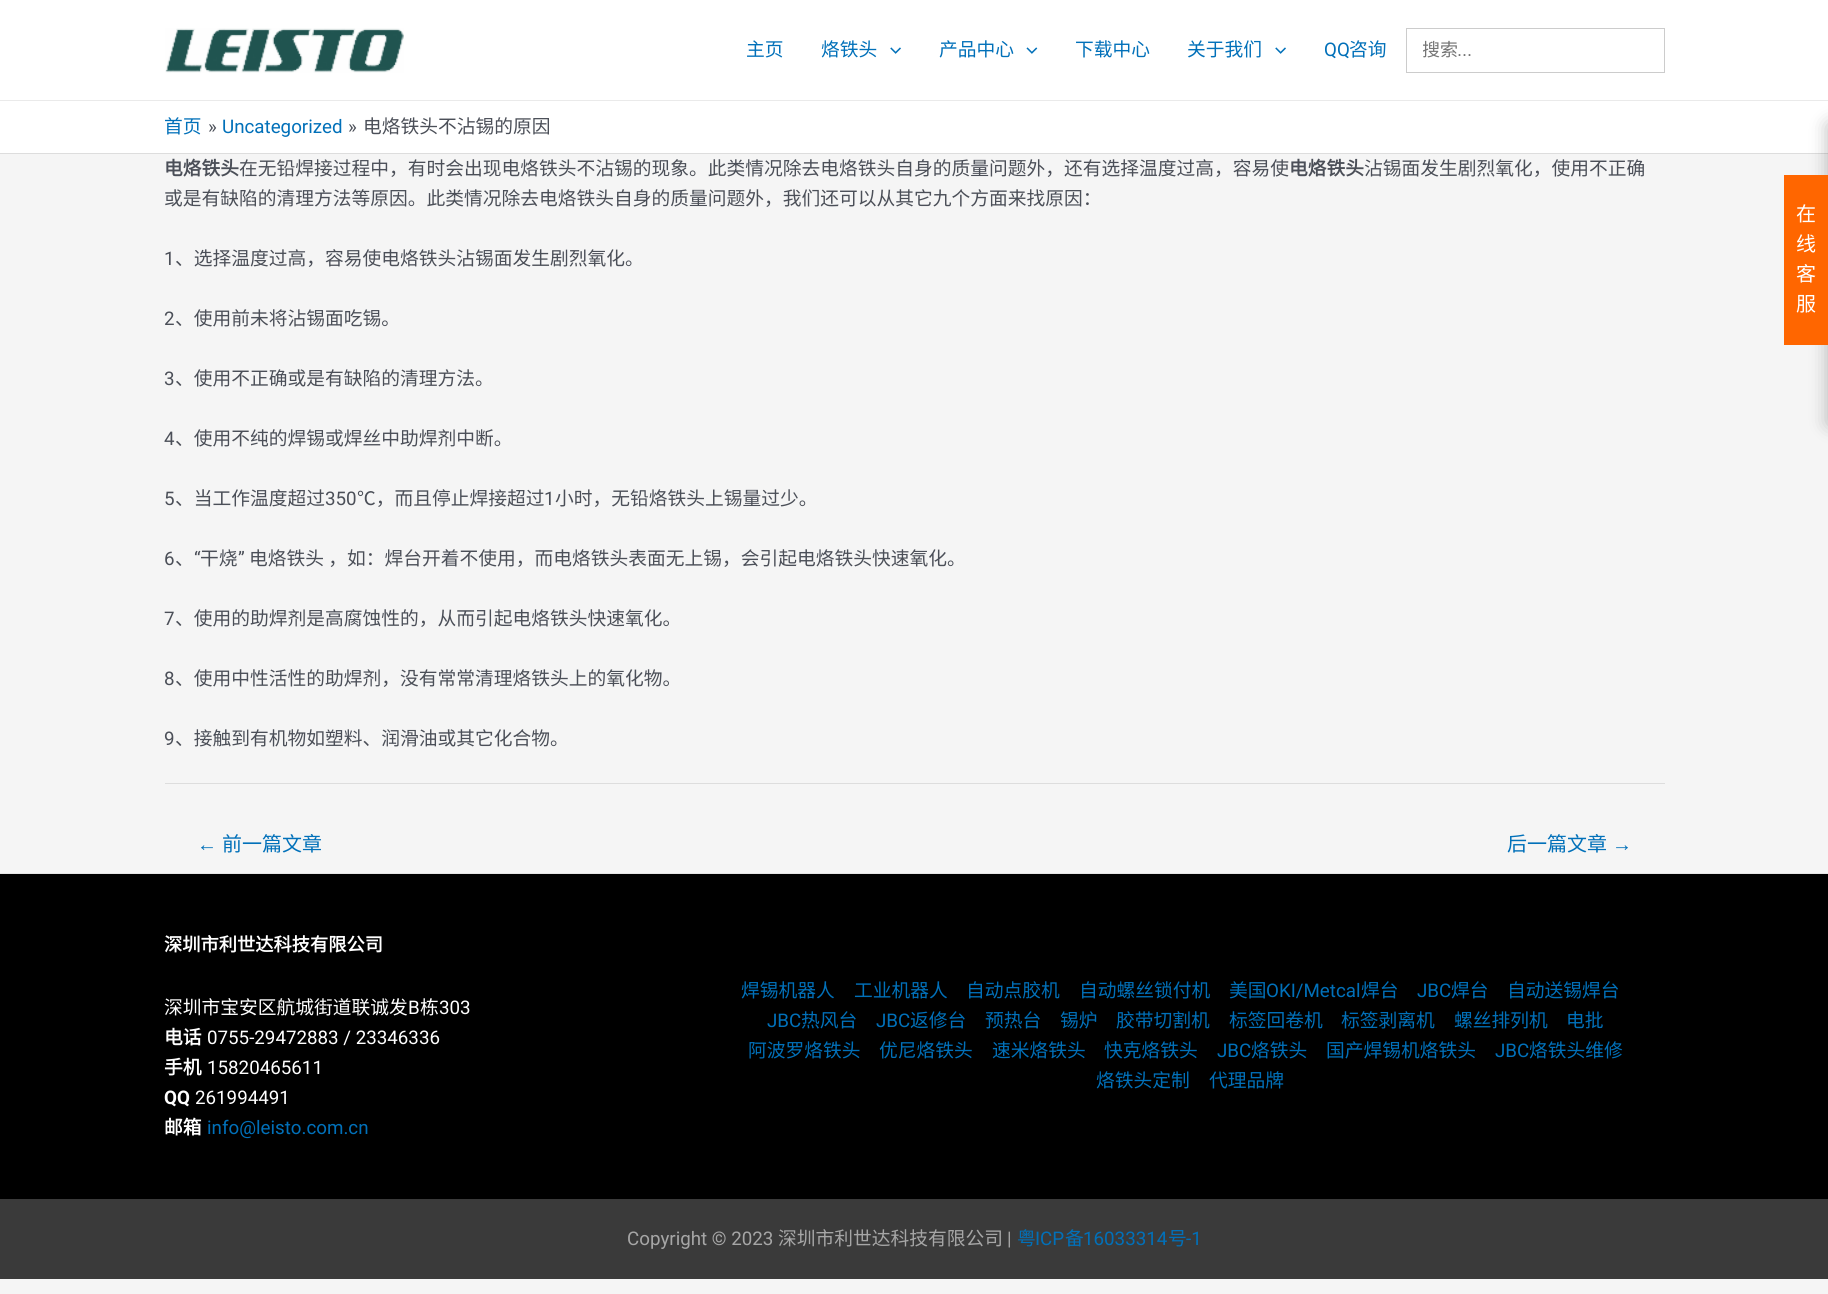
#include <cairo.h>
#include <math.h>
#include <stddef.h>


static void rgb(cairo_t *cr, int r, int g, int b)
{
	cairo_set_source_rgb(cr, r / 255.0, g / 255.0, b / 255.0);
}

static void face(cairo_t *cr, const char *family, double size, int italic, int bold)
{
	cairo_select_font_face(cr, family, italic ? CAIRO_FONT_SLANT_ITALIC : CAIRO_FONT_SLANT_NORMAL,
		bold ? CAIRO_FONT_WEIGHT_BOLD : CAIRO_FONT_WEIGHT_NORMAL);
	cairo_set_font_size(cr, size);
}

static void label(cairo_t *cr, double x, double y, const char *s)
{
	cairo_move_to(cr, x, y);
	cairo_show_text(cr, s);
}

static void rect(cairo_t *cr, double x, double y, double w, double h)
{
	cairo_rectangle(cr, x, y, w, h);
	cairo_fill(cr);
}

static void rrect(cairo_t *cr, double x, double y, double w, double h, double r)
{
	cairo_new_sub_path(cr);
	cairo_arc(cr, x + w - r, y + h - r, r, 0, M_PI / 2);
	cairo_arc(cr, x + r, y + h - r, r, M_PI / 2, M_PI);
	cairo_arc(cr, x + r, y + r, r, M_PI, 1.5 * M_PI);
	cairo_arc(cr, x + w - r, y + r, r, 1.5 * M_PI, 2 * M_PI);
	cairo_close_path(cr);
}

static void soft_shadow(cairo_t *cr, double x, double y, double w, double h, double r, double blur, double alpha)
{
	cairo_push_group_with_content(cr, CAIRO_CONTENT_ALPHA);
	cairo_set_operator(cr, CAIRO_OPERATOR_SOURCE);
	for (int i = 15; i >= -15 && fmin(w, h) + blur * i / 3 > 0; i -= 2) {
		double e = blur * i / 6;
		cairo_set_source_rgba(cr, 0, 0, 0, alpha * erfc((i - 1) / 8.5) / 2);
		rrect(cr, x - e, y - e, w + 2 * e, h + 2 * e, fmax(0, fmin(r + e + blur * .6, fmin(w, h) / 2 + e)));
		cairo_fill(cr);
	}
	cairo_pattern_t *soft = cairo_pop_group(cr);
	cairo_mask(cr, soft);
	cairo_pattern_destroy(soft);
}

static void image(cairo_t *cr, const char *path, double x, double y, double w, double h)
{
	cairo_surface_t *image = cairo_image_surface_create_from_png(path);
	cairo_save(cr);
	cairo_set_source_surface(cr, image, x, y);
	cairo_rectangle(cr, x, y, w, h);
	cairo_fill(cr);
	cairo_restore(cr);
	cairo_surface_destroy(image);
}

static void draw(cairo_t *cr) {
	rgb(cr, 245, 245, 245);
	cairo_paint(cr);
	rgb(cr, 255, 255, 255);
	rect(cr, 0, 0, 1828, 100);
	rgb(cr, 234, 234, 234);
	rect(cr, 0, 100, 1828, 1);
	image(cr, "image0.png", 165, 28, 239, 45);
	face(cr, "Noto Sans CJK SC", 18.75, 0, 0);
	rgb(cr, 1, 112, 185);
	label(cr, 746, 56, "主页");
	label(cr, 821, 56, "烙铁头");
	image(cr, "image1.png", 890, 47, 11, 7);
	label(cr, 939, 56, "产品中心");
	image(cr, "image2.png", 1026, 47, 12, 7);
	label(cr, 1075, 56, "下载中心");
	label(cr, 1187, 56, "关于我们");
	image(cr, "image1.png", 1275, 47, 11, 7);
	face(cr, "Roboto", 18.75, 0, 0);
	label(cr, 1324, 56, "QQ");
	face(cr, "Noto Sans CJK SC", 18.75, 0, 0);
	label(cr, 1349, 56, "咨询");
	cairo_rectangle(cr, 1406.5, 28.5, 258, 44);
	rgb(cr, 204, 204, 204);
	cairo_set_line_width(cr, 1);
	cairo_stroke(cr);
	cairo_save(cr);
	cairo_rectangle(cr, 1423, 36, 226, 25);
	cairo_clip(cr);
	face(cr, "Noto Sans CJK SC", 18, 0, 0);
	rgb(cr, 117, 117, 117);
	label(cr, 1422, 56, "搜索");
	cairo_restore(cr);
	face(cr, "Liberation Sans", 18, 0, 0);
	rgb(cr, 117, 117, 117);
	label(cr, 1457, 56, "...");
	rgb(cr, 255, 255, 255);
	rect(cr, 0, 101, 1828, 52);
	rgb(cr, 221, 221, 221);
	rect(cr, 0, 153, 1828, 1);
	face(cr, "Noto Sans CJK SC", 18.75, 0, 0);
	rgb(cr, 1, 112, 185);
	label(cr, 164, 133, "首页");
	face(cr, "Roboto", 18.75, 0, 0);
	rgb(cr, 75, 79, 88);
	label(cr, 208, 133, "»");
	rgb(cr, 1, 112, 185);
	label(cr, 222, 133, "Uncategorized");
	rgb(cr, 75, 79, 88);
	label(cr, 348, 133, "»");
	face(cr, "Noto Sans CJK SC", 18.75, 0, 0);
	label(cr, 363, 133, "电烙铁头不沾锡的原因");
	face(cr, "Noto Sans CJK SC", 18.75, 0, 1);
	label(cr, 164, 175, "电烙铁头");
	face(cr, "Noto Sans CJK SC", 18.75, 0, 0);
	label(cr, 239, 175, "在无铅焊接过程中，有时会出现电烙铁头不沾锡的现象。此类情况除去电烙铁头自身的质量问题外，还有选择温度过高，容易使");
	face(cr, "Noto Sans CJK SC", 18.75, 0, 1);
	label(cr, 1289, 175, "电烙铁头");
	face(cr, "Noto Sans CJK SC", 18.75, 0, 0);
	label(cr, 1364, 175, "沾锡面发生剧烈氧化，使用不正确");
	label(cr, 164, 205, "或是有缺陷的清理方法等原因。此类情况除去电烙铁头自身的质量问题外，我们还可以从其它九个方面来找原因：");
	face(cr, "Roboto", 18.75, 0, 0);
	label(cr, 164, 265, "1");
	face(cr, "Noto Sans CJK SC", 18.75, 0, 0);
	label(cr, 175, 265, "、选择温度过高，容易使电烙铁头沾锡面发生剧烈氧化。");
	face(cr, "Roboto", 18.75, 0, 0);
	label(cr, 164, 325, "2");
	face(cr, "Noto Sans CJK SC", 18.75, 0, 0);
	label(cr, 175, 325, "、使用前未将沾锡面吃锡。");
	face(cr, "Roboto", 18.75, 0, 0);
	label(cr, 164, 385, "3");
	face(cr, "Noto Sans CJK SC", 18.75, 0, 0);
	label(cr, 175, 385, "、使用不正确或是有缺陷的清理方法。");
	face(cr, "Roboto", 18.75, 0, 0);
	label(cr, 164, 445, "4");
	face(cr, "Noto Sans CJK SC", 18.75, 0, 0);
	label(cr, 175, 445, "、使用不纯的焊锡或焊丝中助焊剂中断。");
	face(cr, "Roboto", 18.75, 0, 0);
	label(cr, 164, 505, "5");
	face(cr, "Noto Sans CJK SC", 18.75, 0, 0);
	label(cr, 175, 505, "、当工作温度超过");
	face(cr, "Roboto", 18.75, 0, 0);
	label(cr, 325, 505, "350");
	face(cr, "Noto Sans CJK SC", 18.75, 0, 0);
	label(cr, 357, 505, "℃，而且停止焊接超过");
	face(cr, "Roboto", 18.75, 0, 0);
	label(cr, 544, 505, "1");
	face(cr, "Noto Sans CJK SC", 18.75, 0, 0);
	label(cr, 555, 505, "小时，无铅烙铁头上锡量过少。");
	face(cr, "Roboto", 18.75, 0, 0);
	label(cr, 164, 565, "6");
	face(cr, "Noto Sans CJK SC", 18.75, 0, 0);
	label(cr, 175, 565, "、");
	face(cr, "Roboto", 18.75, 0, 0);
	label(cr, 194, 565, "“");
	face(cr, "Noto Sans CJK SC", 18.75, 0, 0);
	label(cr, 200, 565, "干烧");
	face(cr, "Roboto", 18.75, 0, 0);
	label(cr, 238, 565, "”");
	face(cr, "Noto Sans CJK SC", 18.75, 0, 0);
	label(cr, 249, 565, "电烙铁头 ，如：焊台开着不使用，而电烙铁头表面无上锡，会引起电烙铁头快速氧化。");
	face(cr, "Roboto", 18.75, 0, 0);
	label(cr, 164, 625, "7");
	face(cr, "Noto Sans CJK SC", 18.75, 0, 0);
	label(cr, 175, 625, "、使用的助焊剂是高腐蚀性的，从而引起电烙铁头快速氧化。");
	face(cr, "Roboto", 18.75, 0, 0);
	label(cr, 164, 685, "8");
	face(cr, "Noto Sans CJK SC", 18.75, 0, 0);
	label(cr, 175, 685, "、使用中性活性的助焊剂，没有常常清理烙铁头上的氧化物。");
	face(cr, "Roboto", 18.75, 0, 0);
	label(cr, 164, 745, "9");
	face(cr, "Noto Sans CJK SC", 18.75, 0, 0);
	label(cr, 175, 745, "、接触到有机物如塑料、润滑油或其它化合物。");
	rgb(cr, 221, 221, 221);
	rect(cr, 165, 783, 1500, 1);
	face(cr, "Liberation Sans", 20, 0, 0);
	rgb(cr, 1, 112, 185);
	label(cr, 197, 851, "←");
	face(cr, "Noto Sans CJK SC", 20, 0, 0);
	label(cr, 222, 851, "前一篇文章");
	label(cr, 1507, 851, "后一篇文章");
	face(cr, "Liberation Sans", 20, 0, 0);
	label(cr, 1612, 851, "→");
	rgb(cr, 0, 0, 0);
	soft_shadow(cr, 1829, 125, 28, 299, 0, 9.5, 0.3);
	rgb(cr, 255, 102, 0);
	rect(cr, 1784, 175, 44, 170);
	face(cr, "Noto Sans CJK SC", 20, 0, 0);
	rgb(cr, 255, 255, 255);
	label(cr, 1796, 221, "在");
	label(cr, 1796, 251, "线");
	label(cr, 1796, 281, "客");
	label(cr, 1796, 311, "服");
	rgb(cr, 0, 0, 0);
	rect(cr, 0, 874, 1828, 325);
	rgb(cr, 230, 230, 230);
	rect(cr, 0, 873, 1828, 1);
	face(cr, "Noto Sans CJK SC", 18.25, 0, 1);
	rgb(cr, 255, 255, 255);
	label(cr, 164, 951, "深圳市利世达科技有限公司");
	face(cr, "Noto Sans CJK SC", 18.75, 0, 0);
	label(cr, 164, 1014, "深圳市宝安区航城街道联诚发");
	face(cr, "Roboto", 18.75, 0, 0);
	label(cr, 408, 1014, "B");
	face(cr, "Noto Sans CJK SC", 18.75, 0, 0);
	label(cr, 420, 1014, "栋");
	face(cr, "Roboto", 18.75, 0, 0);
	label(cr, 439, 1014, "303");
	face(cr, "Noto Sans CJK SC", 18.75, 0, 1);
	label(cr, 164, 1044, "电话");
	face(cr, "Roboto", 18.75, 0, 0);
	label(cr, 207, 1044, "0755-29472883 / 23346336");
	face(cr, "Noto Sans CJK SC", 18.75, 0, 1);
	label(cr, 164, 1074, "手机");
	face(cr, "Roboto", 18.75, 0, 0);
	label(cr, 207, 1074, "15820465611");
	face(cr, "Roboto", 18.75, 0, 1);
	label(cr, 164, 1104, "QQ");
	face(cr, "Roboto", 18.75, 0, 0);
	label(cr, 195, 1104, "261994491");
	face(cr, "Noto Sans CJK SC", 18.75, 0, 1);
	label(cr, 164, 1134, "邮箱");
	face(cr, "Roboto", 18.75, 0, 0);
	rgb(cr, 1, 112, 185);
	label(cr, 207, 1134, "info@leisto.com.cn");
	face(cr, "Noto Sans CJK SC", 18.75, 0, 0);
	label(cr, 741, 997, "焊锡机器人");
	label(cr, 854, 997, "工业机器人");
	label(cr, 966, 997, "自动点胶机");
	label(cr, 1079, 997, "自动螺丝锁付机");
	label(cr, 1229, 997, "美国");
	face(cr, "Roboto", 18.75, 0, 0);
	label(cr, 1266, 997, "OKI/Metcal");
	face(cr, "Noto Sans CJK SC", 18.75, 0, 0);
	label(cr, 1361, 997, "焊台");
	face(cr, "Roboto", 18.75, 0, 0);
	label(cr, 1417, 997, "JBC");
	face(cr, "Noto Sans CJK SC", 18.75, 0, 0);
	label(cr, 1451, 997, "焊台");
	label(cr, 1507, 997, "自动送锡焊台");
	face(cr, "Roboto", 18.75, 0, 0);
	label(cr, 767, 1027, "JBC");
	face(cr, "Noto Sans CJK SC", 18.75, 0, 0);
	label(cr, 801, 1027, "热风台");
	face(cr, "Roboto", 18.75, 0, 0);
	label(cr, 876, 1027, "JBC");
	face(cr, "Noto Sans CJK SC", 18.75, 0, 0);
	label(cr, 910, 1027, "返修台");
	label(cr, 985, 1027, "预热台");
	label(cr, 1060, 1027, "锡炉");
	label(cr, 1116, 1027, "胶带切割机");
	label(cr, 1229, 1027, "标签回卷机");
	label(cr, 1341, 1027, "标签剥离机");
	label(cr, 1454, 1027, "螺丝排列机");
	label(cr, 1566, 1027, "电批");
	label(cr, 748, 1057, "阿波罗烙铁头");
	label(cr, 879, 1057, "优尼烙铁头");
	label(cr, 992, 1057, "速米烙铁头");
	label(cr, 1104, 1057, "快克烙铁头");
	face(cr, "Roboto", 18.75, 0, 0);
	label(cr, 1217, 1057, "JBC");
	face(cr, "Noto Sans CJK SC", 18.75, 0, 0);
	label(cr, 1251, 1057, "烙铁头");
	label(cr, 1326, 1057, "国产焊锡机烙铁头");
	face(cr, "Roboto", 18.75, 0, 0);
	label(cr, 1495, 1057, "JBC");
	face(cr, "Noto Sans CJK SC", 18.75, 0, 0);
	label(cr, 1529, 1057, "烙铁头维修");
	label(cr, 1096, 1087, "烙铁头定制");
	label(cr, 1209, 1087, "代理品牌");
	rgb(cr, 58, 58, 58);
	rect(cr, 0, 1199, 1828, 80);
	face(cr, "Roboto", 18.75, 0, 0);
	rgb(cr, 166, 166, 166);
	label(cr, 627, 1245, "Copyright © 2023");
	face(cr, "Noto Sans CJK SC", 18.75, 0, 0);
	label(cr, 778, 1245, "深圳市利世达科技有限公司");
	face(cr, "Roboto", 18.75, 0, 0);
	label(cr, 1007, 1245, "|");
	face(cr, "Noto Sans CJK SC", 18.75, 0, 0);
	rgb(cr, 1, 112, 185);
	label(cr, 1017, 1245, "粤");
	face(cr, "Roboto", 18.75, 0, 0);
	label(cr, 1035, 1245, "ICP");
	face(cr, "Noto Sans CJK SC", 18.75, 0, 0);
	label(cr, 1065, 1245, "备");
	face(cr, "Roboto", 18.75, 0, 0);
	label(cr, 1083, 1245, "16033314");
	face(cr, "Noto Sans CJK SC", 18.75, 0, 0);
	label(cr, 1168, 1245, "号");
	face(cr, "Roboto", 18.75, 0, 0);
	label(cr, 1186, 1245, "-1");
}

int main(void) {
	cairo_surface_t *surface = cairo_image_surface_create(CAIRO_FORMAT_RGB24, 1828, 1294);
	cairo_t *cr = cairo_create(surface);
	cairo_font_options_t *options = cairo_font_options_create();
	cairo_font_options_set_hint_metrics(options, CAIRO_HINT_METRICS_OFF);
	cairo_font_options_set_hint_style(options, CAIRO_HINT_STYLE_NONE);
	cairo_set_font_options(cr, options);
	cairo_set_miter_limit(cr, 4);
	draw(cr);
	cairo_surface_write_to_png(surface, "render.png");
	cairo_font_options_destroy(options);
	cairo_destroy(cr);
	cairo_surface_destroy(surface);
	return 0;
}
